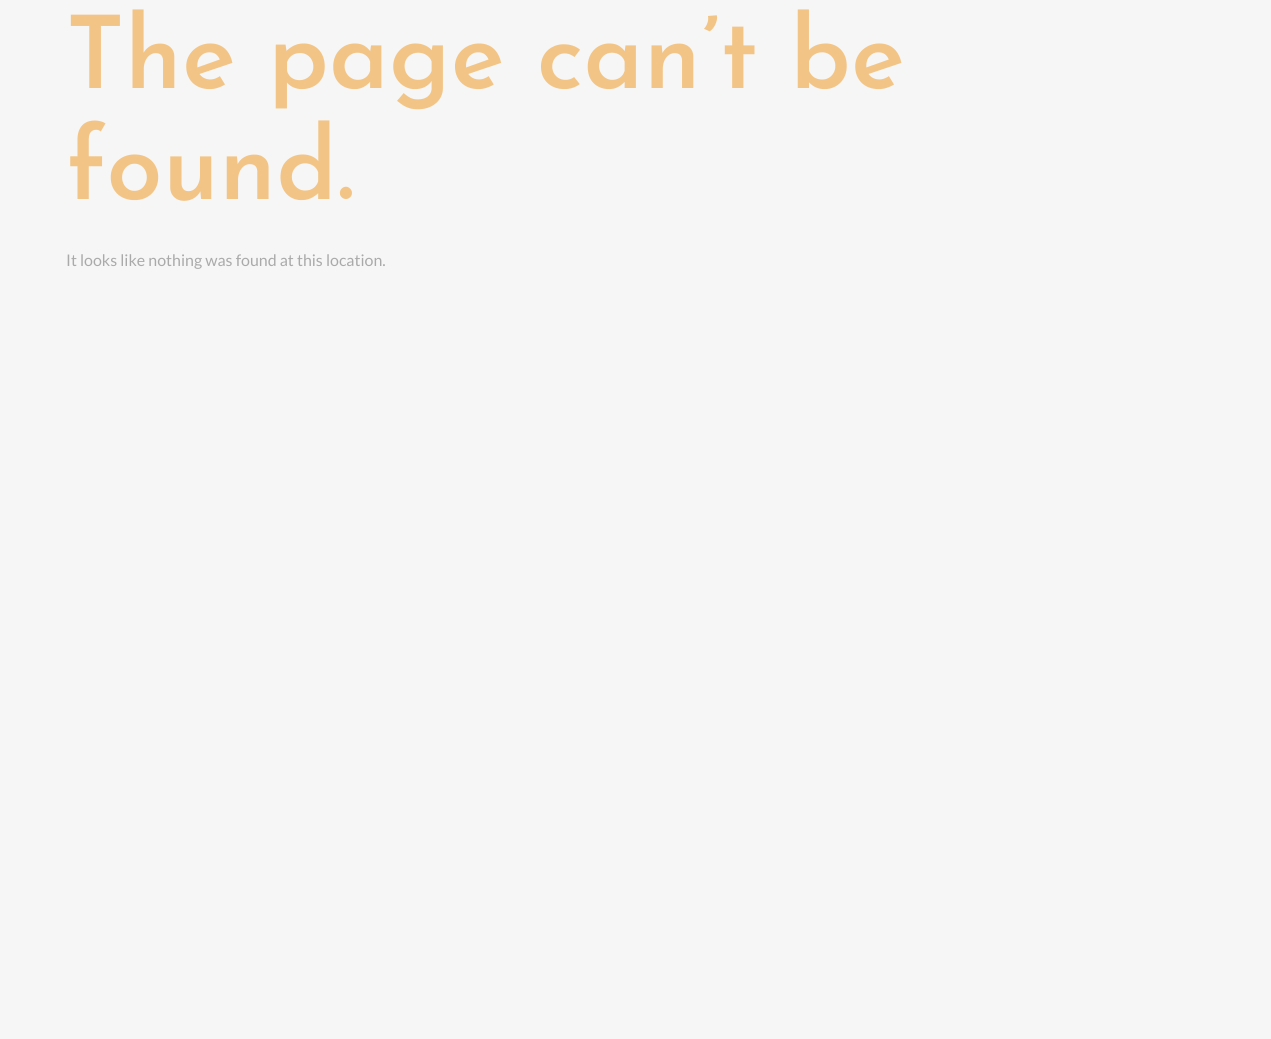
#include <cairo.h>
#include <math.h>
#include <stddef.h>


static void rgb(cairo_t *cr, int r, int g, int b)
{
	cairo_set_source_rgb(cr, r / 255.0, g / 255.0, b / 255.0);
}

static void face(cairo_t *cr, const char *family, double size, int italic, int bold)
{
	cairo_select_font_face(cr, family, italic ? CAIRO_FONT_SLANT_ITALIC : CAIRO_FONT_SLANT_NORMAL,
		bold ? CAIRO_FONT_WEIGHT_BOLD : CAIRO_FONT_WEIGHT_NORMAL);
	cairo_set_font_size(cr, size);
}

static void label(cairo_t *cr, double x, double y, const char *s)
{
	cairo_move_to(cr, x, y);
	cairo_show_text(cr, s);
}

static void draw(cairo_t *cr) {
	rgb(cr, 246, 246, 246);
	cairo_paint(cr);
	face(cr, "Josefin Sans SemiBold", 100.75, 0, 0);
	rgb(cr, 242, 197, 135);
	label(cr, 66, 88, "The page can’t be");
	label(cr, 66, 199, "found.");
	face(cr, "Lato", 16, 0, 0);
	rgb(cr, 170, 170, 170);
	label(cr, 66, 266, "It looks like nothing was found at this location.");
}

int main(void) {
	cairo_surface_t *surface = cairo_image_surface_create(CAIRO_FORMAT_RGB24, 1271, 1039);
	cairo_t *cr = cairo_create(surface);
	cairo_font_options_t *options = cairo_font_options_create();
	cairo_font_options_set_hint_metrics(options, CAIRO_HINT_METRICS_OFF);
	cairo_font_options_set_hint_style(options, CAIRO_HINT_STYLE_NONE);
	cairo_set_font_options(cr, options);
	cairo_set_miter_limit(cr, 4);
	draw(cr);
	cairo_surface_write_to_png(surface, "render.png");
	cairo_font_options_destroy(options);
	cairo_destroy(cr);
	cairo_surface_destroy(surface);
	return 0;
}
